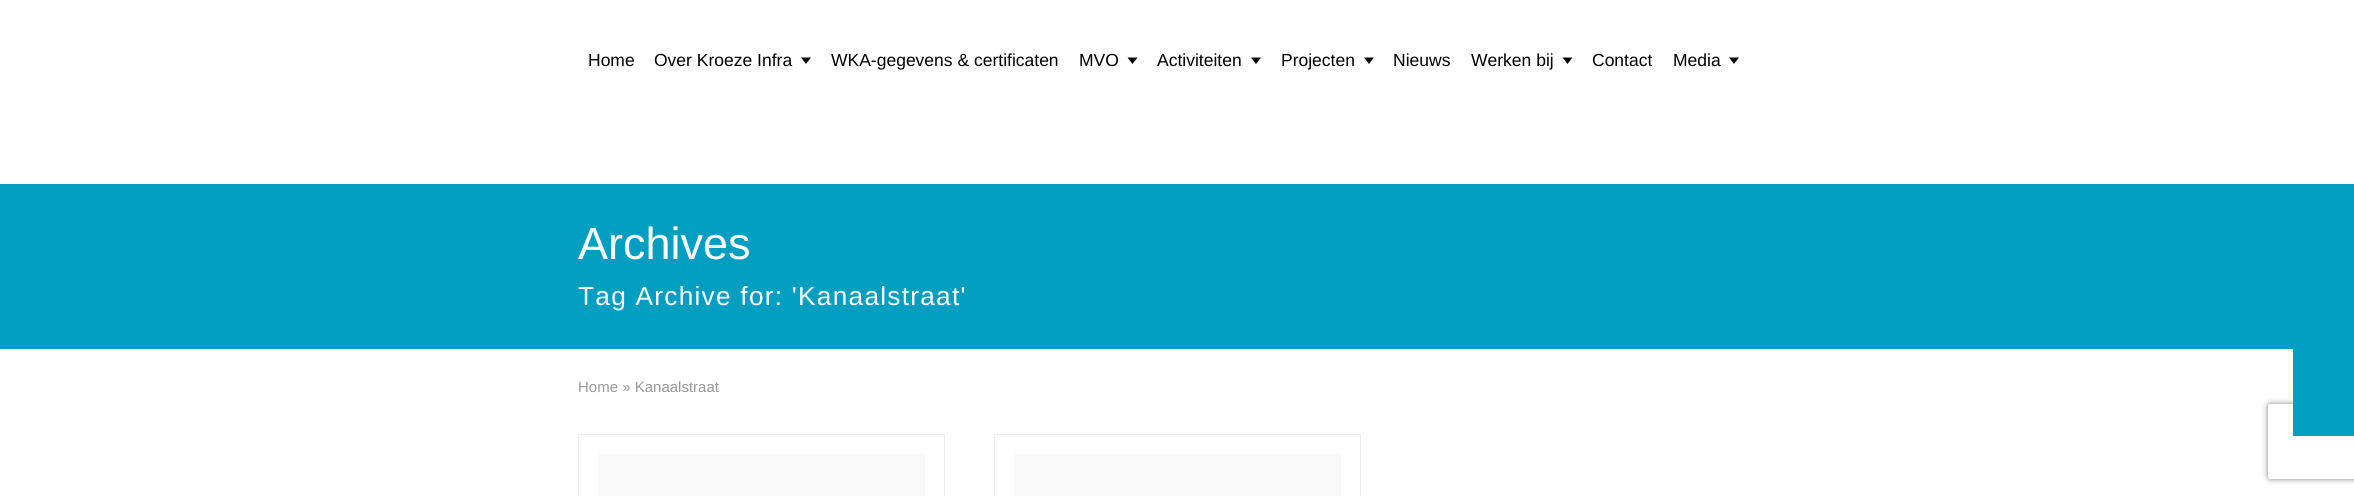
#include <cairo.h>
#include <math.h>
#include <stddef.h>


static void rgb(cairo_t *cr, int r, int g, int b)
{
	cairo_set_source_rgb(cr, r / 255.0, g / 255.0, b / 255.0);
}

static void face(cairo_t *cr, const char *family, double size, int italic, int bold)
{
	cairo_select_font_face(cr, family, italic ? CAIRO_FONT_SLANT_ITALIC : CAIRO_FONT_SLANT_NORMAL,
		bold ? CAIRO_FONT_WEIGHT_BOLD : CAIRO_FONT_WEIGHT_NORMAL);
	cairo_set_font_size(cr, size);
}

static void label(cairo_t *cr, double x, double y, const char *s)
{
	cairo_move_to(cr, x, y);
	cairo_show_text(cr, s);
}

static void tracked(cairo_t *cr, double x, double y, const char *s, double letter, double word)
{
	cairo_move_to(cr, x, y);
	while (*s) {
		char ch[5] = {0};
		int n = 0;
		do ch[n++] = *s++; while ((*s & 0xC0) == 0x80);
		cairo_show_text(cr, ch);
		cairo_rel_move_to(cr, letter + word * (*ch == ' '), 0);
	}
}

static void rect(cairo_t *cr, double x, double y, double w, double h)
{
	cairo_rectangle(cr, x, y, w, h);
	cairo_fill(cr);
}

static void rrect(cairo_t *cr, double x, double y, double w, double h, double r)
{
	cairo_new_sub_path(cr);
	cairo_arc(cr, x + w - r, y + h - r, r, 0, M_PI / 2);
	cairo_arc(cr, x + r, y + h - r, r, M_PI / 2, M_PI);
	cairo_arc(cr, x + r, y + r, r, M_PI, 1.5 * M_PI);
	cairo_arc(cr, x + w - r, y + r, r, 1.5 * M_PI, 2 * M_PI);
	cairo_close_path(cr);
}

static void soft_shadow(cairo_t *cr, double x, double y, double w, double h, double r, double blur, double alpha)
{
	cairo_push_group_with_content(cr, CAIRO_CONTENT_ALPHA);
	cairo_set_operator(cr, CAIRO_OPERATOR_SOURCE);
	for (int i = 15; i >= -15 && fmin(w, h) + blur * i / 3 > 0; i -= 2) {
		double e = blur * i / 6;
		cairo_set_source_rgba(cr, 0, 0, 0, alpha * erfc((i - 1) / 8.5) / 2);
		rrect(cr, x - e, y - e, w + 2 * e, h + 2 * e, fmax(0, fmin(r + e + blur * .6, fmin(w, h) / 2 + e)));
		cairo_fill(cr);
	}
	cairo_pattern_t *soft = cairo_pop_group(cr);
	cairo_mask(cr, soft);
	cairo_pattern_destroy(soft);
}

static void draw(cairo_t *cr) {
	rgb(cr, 255, 255, 255);
	cairo_paint(cr);
	face(cr, "Liberation Sans", 17.5, 0, 0);
	rgb(cr, 0, 0, 0);
	label(cr, 588, 66, "Home");
	label(cr, 654, 66, "Over Kroeze Infra");
	cairo_new_path(cr);
	cairo_move_to(cr, 801, 57.5);
	cairo_line_to(cr, 811, 57.5);
	cairo_line_to(cr, 806, 64);
	cairo_close_path(cr);
	cairo_fill(cr);
	label(cr, 831, 66, "WKA-gegevens & certificaten");
	label(cr, 1079, 66, "MVO");
	cairo_new_path(cr);
	cairo_move_to(cr, 1127.5, 57.5);
	cairo_line_to(cr, 1137.5, 57.5);
	cairo_line_to(cr, 1132.5, 64);
	cairo_close_path(cr);
	cairo_fill(cr);
	label(cr, 1157, 66, "Activiteiten");
	cairo_new_path(cr);
	cairo_move_to(cr, 1251, 57.5);
	cairo_line_to(cr, 1261, 57.5);
	cairo_line_to(cr, 1256, 64);
	cairo_close_path(cr);
	cairo_fill(cr);
	label(cr, 1281, 66, "Projecten");
	cairo_new_path(cr);
	cairo_move_to(cr, 1364, 57.5);
	cairo_line_to(cr, 1374, 57.5);
	cairo_line_to(cr, 1369, 64);
	cairo_close_path(cr);
	cairo_fill(cr);
	label(cr, 1393, 66, "Nieuws");
	label(cr, 1471, 66, "Werken bij");
	cairo_new_path(cr);
	cairo_move_to(cr, 1562.5, 57.5);
	cairo_line_to(cr, 1572.5, 57.5);
	cairo_line_to(cr, 1567.5, 64);
	cairo_close_path(cr);
	cairo_fill(cr);
	label(cr, 1592, 66, "Contact");
	label(cr, 1673, 66, "Media");
	cairo_new_path(cr);
	cairo_move_to(cr, 1729, 57.5);
	cairo_line_to(cr, 1739, 57.5);
	cairo_line_to(cr, 1734, 64);
	cairo_close_path(cr);
	cairo_fill(cr);
	rgb(cr, 0, 158, 192);
	rect(cr, 0, 184, 2354, 165);
	face(cr, "Liberation Sans", 45, 0, 0);
	rgb(cr, 255, 255, 255);
	label(cr, 578, 259, "Archives");
	face(cr, "Liberation Sans", 26.25, 0, 0);
	tracked(cr, 578, 305, "Tag Archive for: 'Kanaalstraat'", 1.25, 0);
	face(cr, "Liberation Sans", 15, 0, 0);
	rgb(cr, 153, 153, 153);
	label(cr, 578, 392, "Home » Kanaalstraat");
	rrect(cr, 578.5, 434.5, 366, 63, 0.5);
	rgb(cr, 238, 238, 238);
	cairo_set_line_width(cr, 1);
	cairo_stroke(cr);
	rgb(cr, 249, 249, 249);
	rect(cr, 598, 454, 327, 42);
	rrect(cr, 994.5, 434.5, 366, 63, 0.5);
	rgb(cr, 238, 238, 238);
	cairo_stroke(cr);
	rgb(cr, 249, 249, 249);
	rect(cr, 1014, 454, 327, 42);
	cairo_save(cr);
	cairo_set_fill_rule(cr, CAIRO_FILL_RULE_EVEN_ODD);
	cairo_new_path(cr);
	cairo_move_to(cr, 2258, 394);
	cairo_line_to(cr, 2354, 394);
	cairo_line_to(cr, 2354, 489);
	cairo_line_to(cr, 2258, 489);
	cairo_close_path(cr);
	cairo_move_to(cr, 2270.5, 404);
	cairo_line_to(cr, 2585.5, 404);
	cairo_curve_to(cr, 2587, 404, 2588, 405, 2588, 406.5);
	cairo_line_to(cr, 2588, 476.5);
	cairo_curve_to(cr, 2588, 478, 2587, 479, 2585.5, 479);
	cairo_line_to(cr, 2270.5, 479);
	cairo_curve_to(cr, 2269, 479, 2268, 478, 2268, 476.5);
	cairo_line_to(cr, 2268, 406.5);
	cairo_curve_to(cr, 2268, 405, 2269, 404, 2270.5, 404);
	cairo_close_path(cr);
	cairo_clip(cr);
	rgb(cr, 128, 128, 128);
	soft_shadow(cr, 2268, 404, 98, 75, 2.5, 3, 1);
	cairo_restore(cr);
	rgb(cr, 0, 158, 192);
	rect(cr, 2293, 349, 61, 87);
}

int main(void) {
	cairo_surface_t *surface = cairo_image_surface_create(CAIRO_FORMAT_RGB24, 2354, 496);
	cairo_t *cr = cairo_create(surface);
	cairo_font_options_t *options = cairo_font_options_create();
	cairo_font_options_set_hint_metrics(options, CAIRO_HINT_METRICS_OFF);
	cairo_font_options_set_hint_style(options, CAIRO_HINT_STYLE_NONE);
	cairo_set_font_options(cr, options);
	cairo_set_miter_limit(cr, 4);
	draw(cr);
	cairo_surface_write_to_png(surface, "render.png");
	cairo_font_options_destroy(options);
	cairo_destroy(cr);
	cairo_surface_destroy(surface);
	return 0;
}
